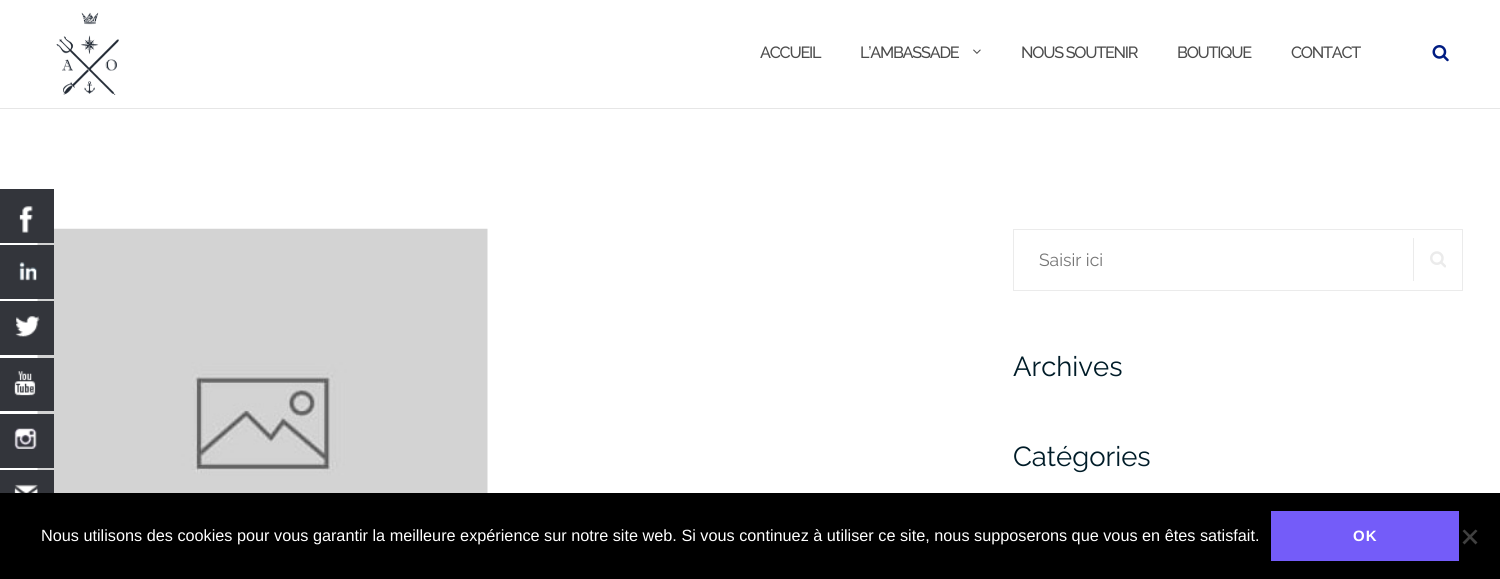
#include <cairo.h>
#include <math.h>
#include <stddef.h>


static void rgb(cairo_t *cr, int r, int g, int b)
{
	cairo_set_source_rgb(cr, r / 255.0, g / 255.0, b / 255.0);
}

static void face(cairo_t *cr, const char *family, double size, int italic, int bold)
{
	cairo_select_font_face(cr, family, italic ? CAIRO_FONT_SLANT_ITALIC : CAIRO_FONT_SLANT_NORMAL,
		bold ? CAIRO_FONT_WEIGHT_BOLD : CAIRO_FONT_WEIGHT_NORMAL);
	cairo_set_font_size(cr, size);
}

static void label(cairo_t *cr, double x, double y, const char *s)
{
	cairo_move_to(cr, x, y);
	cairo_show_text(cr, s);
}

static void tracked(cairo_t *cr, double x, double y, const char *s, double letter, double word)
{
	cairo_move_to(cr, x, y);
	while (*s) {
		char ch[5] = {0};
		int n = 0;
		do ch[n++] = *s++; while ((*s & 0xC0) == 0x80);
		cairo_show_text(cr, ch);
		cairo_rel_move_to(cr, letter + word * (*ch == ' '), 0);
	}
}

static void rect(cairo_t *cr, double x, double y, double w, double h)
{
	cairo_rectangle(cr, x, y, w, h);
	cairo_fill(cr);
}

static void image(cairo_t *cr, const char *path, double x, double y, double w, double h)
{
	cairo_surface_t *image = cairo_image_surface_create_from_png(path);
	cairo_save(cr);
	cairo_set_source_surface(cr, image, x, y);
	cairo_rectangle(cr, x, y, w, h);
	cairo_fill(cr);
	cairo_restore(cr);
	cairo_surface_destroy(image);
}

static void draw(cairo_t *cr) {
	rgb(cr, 255, 255, 255);
	cairo_paint(cr);
	image(cr, "image9.png", 37, 228, 451, 265);
	rgb(cr, 51, 53, 59);
	rect(cr, 0, 189, 54, 54);
	image(cr, "image0.png", 19, 206, 14, 27);
	rect(cr, 0, 245, 54, 54);
	image(cr, "image1.png", 19, 262, 18, 19);
	rect(cr, 0, 301, 54, 54);
	image(cr, "image2.png", 15, 316, 25, 21);
	rect(cr, 0, 358, 54, 53);
	image(cr, "image3.png", 14, 371, 22, 25);
	rect(cr, 0, 414, 54, 54);
	image(cr, "image4.png", 14, 428, 23, 21);
	rect(cr, 0, 470, 54, 23);
	image(cr, "image5.png", 14, 484, 24, 9);
	rgb(cr, 230, 230, 230);
	rect(cr, 0, 108, 1500, 1);
	image(cr, "image6.png", 56, 12, 63, 83);
	face(cr, "Raleway Medium", 16.25, 0, 0);
	rgb(cr, 76, 76, 76);
	tracked(cr, 760, 58, "ACCUEIL", -1.25, 0);
	tracked(cr, 860, 58, "L’AMBASSADE", -1.25, 0);
	image(cr, "image7.png", 973, 49, 8, 5);
	tracked(cr, 1021, 58, "NOUS SOUTENIR", -1.25, 0);
	tracked(cr, 1177, 58, "BOUTIQUE", -1.25, 0);
	tracked(cr, 1291, 58, "CONTACT", -1.25, 0);
	image(cr, "image8.png", 1432, 45, 17, 17);
	cairo_rectangle(cr, 1013.5, 229.5, 449, 61);
	rgb(cr, 235, 235, 235);
	cairo_set_line_width(cr, 1);
	cairo_stroke(cr);
	face(cr, "Raleway", 17.5, 0, 0);
	rgb(cr, 117, 117, 117);
	label(cr, 1039, 266, "Saisir ici");
	rgb(cr, 235, 235, 235);
	rect(cr, 1413, 238, 1, 43);
	image(cr, "image10.png", 1430, 251, 16, 17);
	face(cr, "Raleway", 27.5, 0, 0);
	rgb(cr, 0, 28, 40);
	label(cr, 1013, 376, "Archives");
	label(cr, 1013, 466, "Catégories");
	rgb(cr, 0, 0, 0);
	rect(cr, 0, 493, 1500, 86);
	face(cr, "Liberation Sans", 16.25, 0, 0);
	rgb(cr, 255, 255, 255);
	label(cr, 41, 541, "Nous utilisons des cookies pour vous garantir la meilleure expérience sur notre site web. Si vous continuez à utiliser ce site, nous supposerons que vous en êtes satisfait.");
	rgb(cr, 116, 92, 249);
	rect(cr, 1271, 511, 188, 50);
	face(cr, "Liberation Sans", 15, 0, 1);
	rgb(cr, 255, 255, 255);
	tracked(cr, 1353, 541, "OK", 1, 0);
	rgb(cr, 64, 64, 64);
	cairo_new_path(cr);
	cairo_move_to(cr, 1475.5, 529.5);
	cairo_line_to(cr, 1477.5, 531);
	cairo_line_to(cr, 1464.5, 544.5);
	cairo_line_to(cr, 1462.5, 542.5);
	cairo_close_path(cr);
	cairo_fill(cr);
	cairo_new_path(cr);
	cairo_move_to(cr, 1462.5, 531);
	cairo_line_to(cr, 1464.5, 529.5);
	cairo_line_to(cr, 1477.5, 542.5);
	cairo_line_to(cr, 1475.5, 544.5);
	cairo_close_path(cr);
	cairo_fill(cr);
}

int main(void) {
	cairo_surface_t *surface = cairo_image_surface_create(CAIRO_FORMAT_RGB24, 1500, 579);
	cairo_t *cr = cairo_create(surface);
	cairo_font_options_t *options = cairo_font_options_create();
	cairo_font_options_set_hint_metrics(options, CAIRO_HINT_METRICS_OFF);
	cairo_font_options_set_hint_style(options, CAIRO_HINT_STYLE_NONE);
	cairo_set_font_options(cr, options);
	cairo_set_miter_limit(cr, 4);
	draw(cr);
	cairo_surface_write_to_png(surface, "render.png");
	cairo_font_options_destroy(options);
	cairo_destroy(cr);
	cairo_surface_destroy(surface);
	return 0;
}
